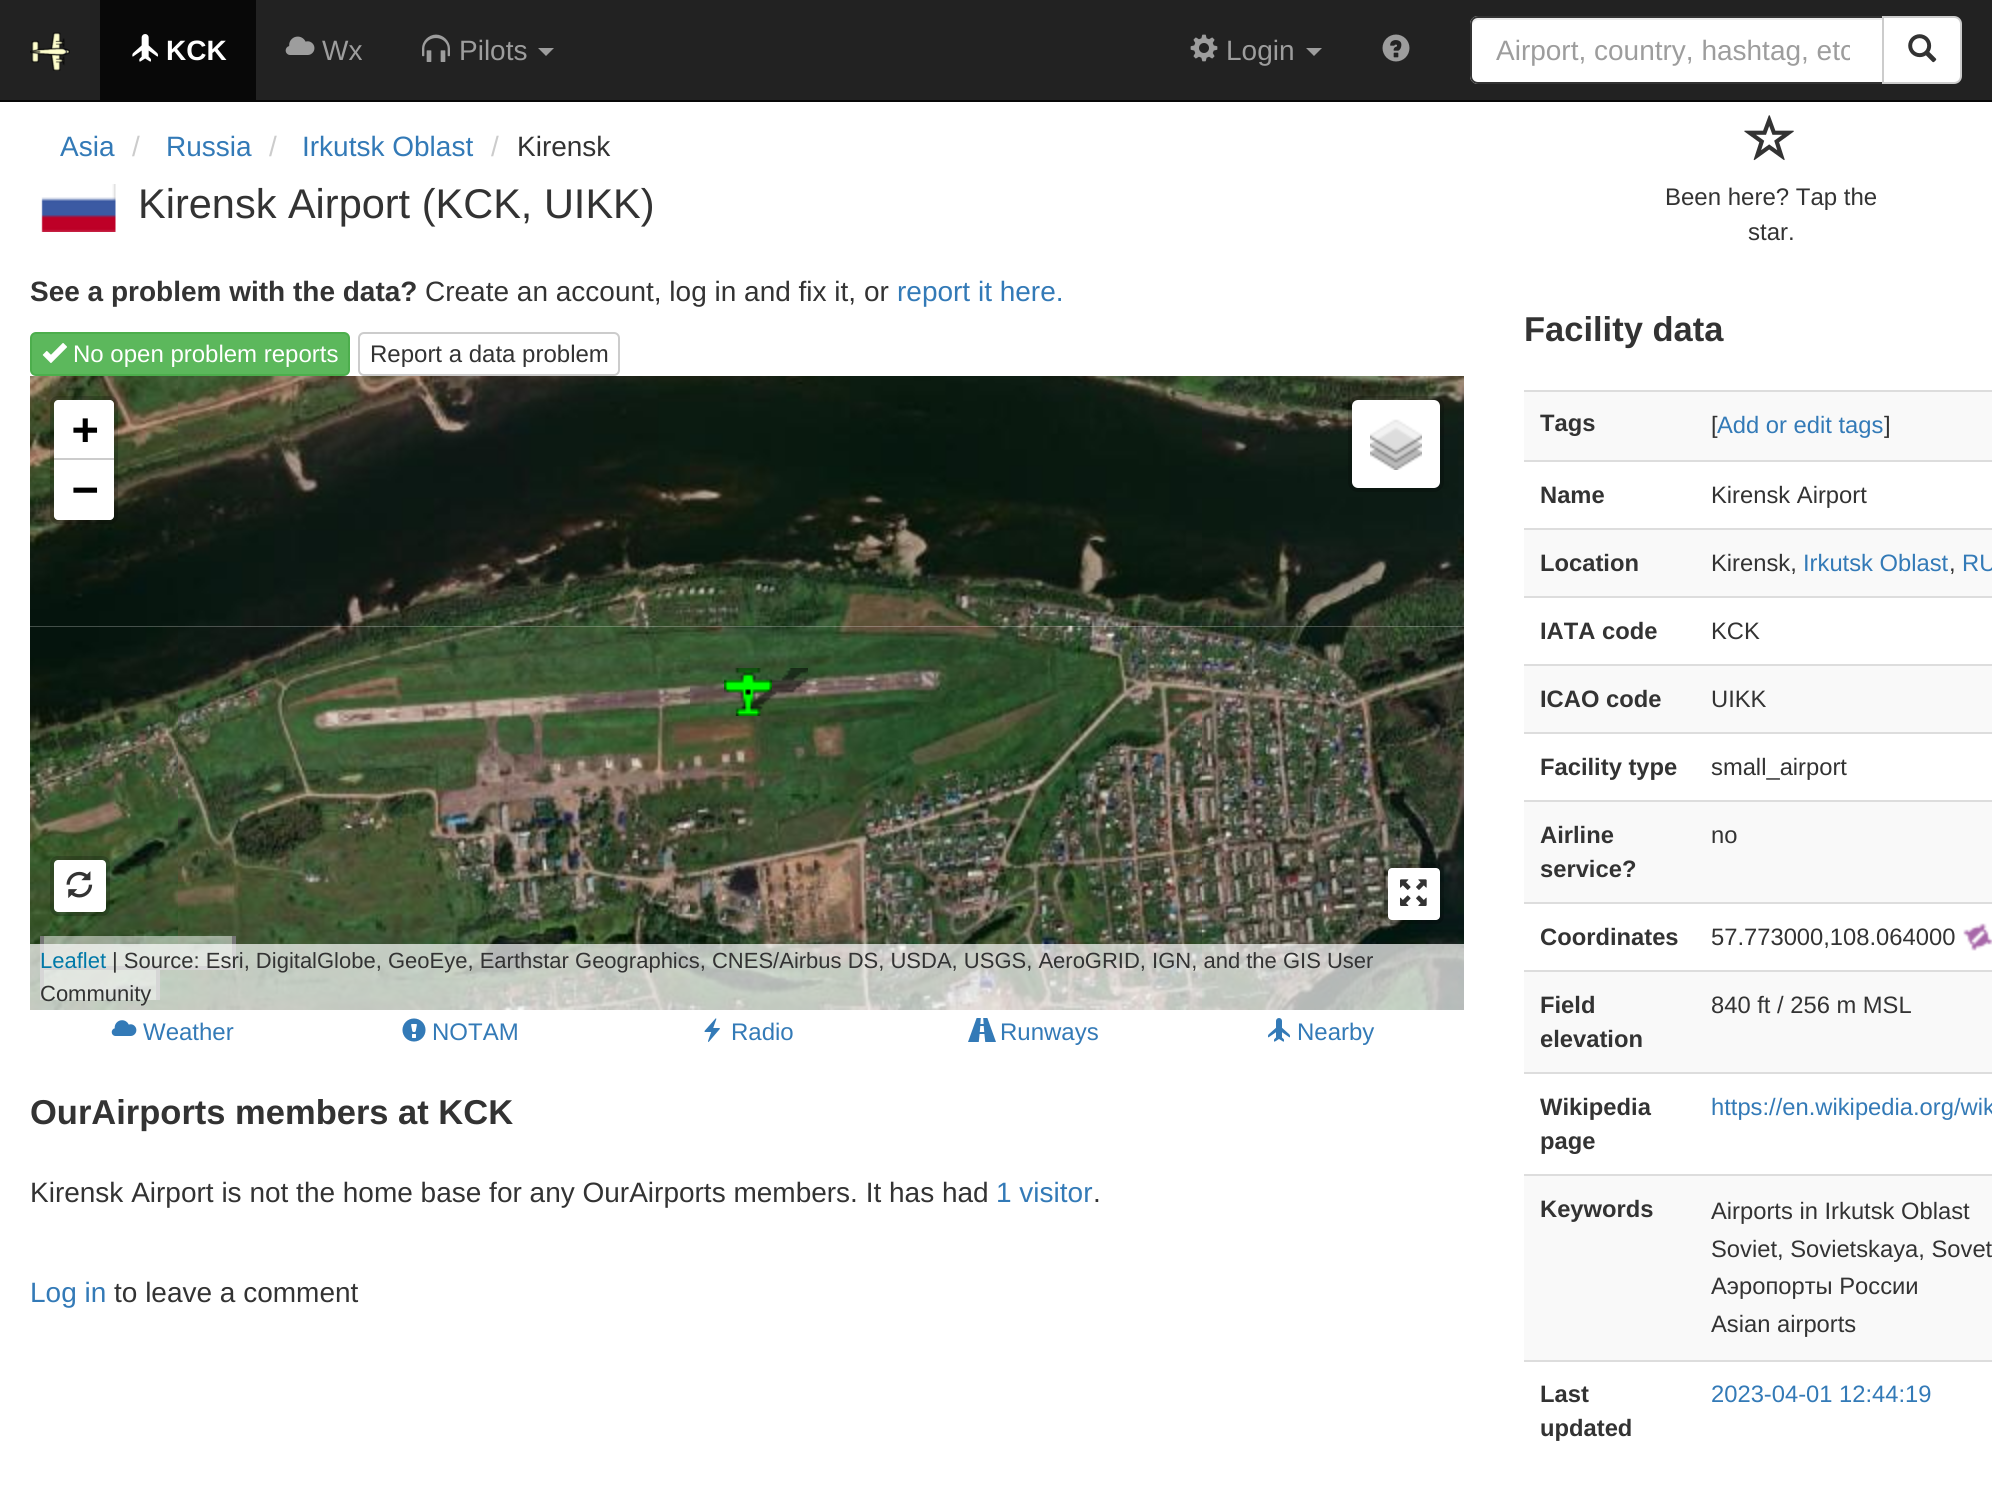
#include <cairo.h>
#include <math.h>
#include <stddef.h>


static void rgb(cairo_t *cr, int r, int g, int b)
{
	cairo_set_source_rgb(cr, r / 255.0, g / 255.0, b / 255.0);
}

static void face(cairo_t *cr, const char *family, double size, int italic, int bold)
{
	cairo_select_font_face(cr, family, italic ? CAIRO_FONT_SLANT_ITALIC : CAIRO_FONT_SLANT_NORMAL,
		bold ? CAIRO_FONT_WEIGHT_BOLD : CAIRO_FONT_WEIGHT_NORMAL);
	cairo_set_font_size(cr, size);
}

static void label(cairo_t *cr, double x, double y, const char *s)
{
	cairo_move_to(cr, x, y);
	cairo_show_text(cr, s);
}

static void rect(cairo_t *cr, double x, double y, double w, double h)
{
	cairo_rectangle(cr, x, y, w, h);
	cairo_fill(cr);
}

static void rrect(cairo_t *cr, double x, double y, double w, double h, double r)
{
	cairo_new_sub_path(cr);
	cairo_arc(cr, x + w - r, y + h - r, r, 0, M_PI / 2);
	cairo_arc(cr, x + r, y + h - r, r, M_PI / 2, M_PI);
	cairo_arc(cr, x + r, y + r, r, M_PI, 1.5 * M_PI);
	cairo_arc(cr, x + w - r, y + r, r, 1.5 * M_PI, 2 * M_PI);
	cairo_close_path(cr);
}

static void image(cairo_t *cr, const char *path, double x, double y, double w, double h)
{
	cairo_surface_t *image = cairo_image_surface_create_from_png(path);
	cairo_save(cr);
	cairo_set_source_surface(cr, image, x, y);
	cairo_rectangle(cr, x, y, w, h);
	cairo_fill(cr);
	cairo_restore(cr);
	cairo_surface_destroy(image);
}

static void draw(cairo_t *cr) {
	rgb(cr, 255, 255, 255);
	cairo_paint(cr);
	rgb(cr, 34, 34, 34);
	rect(cr, 0, 0, 1992, 100);
	rgb(cr, 8, 8, 8);
	rect(cr, 0, 100, 1992, 2);
	image(cr, "image0.png", 30, 32, 40, 39);
	rect(cr, 100, 0, 156, 100);
	image(cr, "image1.png", 132, 34, 26, 28);
	face(cr, "Liberation Sans", 28, 0, 1);
	rgb(cr, 255, 255, 255);
	label(cr, 166, 60, "KCK");
	image(cr, "image2.png", 285, 36, 30, 19);
	face(cr, "Liberation Sans", 28, 0, 0);
	rgb(cr, 157, 157, 157);
	label(cr, 322, 60, "Wx");
	image(cr, "image3.png", 422, 34, 28, 28);
	label(cr, 459, 60, "Pilots");
	cairo_new_path(cr);
	cairo_move_to(cr, 538, 48);
	cairo_line_to(cr, 554, 48);
	cairo_line_to(cr, 546, 56);
	cairo_close_path(cr);
	cairo_fill(cr);
	image(cr, "image4.png", 1190, 34, 28, 28);
	label(cr, 1226, 60, "Login");
	cairo_new_path(cr);
	cairo_move_to(cr, 1306, 48);
	cairo_line_to(cr, 1322, 48);
	cairo_line_to(cr, 1314, 56);
	cairo_close_path(cr);
	cairo_fill(cr);
	image(cr, "image5.png", 1382, 34, 28, 28);
	rgb(cr, 255, 255, 255);
	cairo_new_path(cr);
	cairo_move_to(cr, 1478, 16);
	cairo_line_to(cr, 1884, 16);
	cairo_line_to(cr, 1884, 84);
	cairo_line_to(cr, 1478, 84);
	cairo_curve_to(cr, 1473.5, 84, 1470, 80.5, 1470, 76);
	cairo_line_to(cr, 1470, 24);
	cairo_curve_to(cr, 1470, 19.5, 1473.5, 16, 1478, 16);
	cairo_close_path(cr);
	cairo_fill(cr);
	rgb(cr, 236, 236, 236);
	cairo_new_path(cr);
	cairo_move_to(cr, 1478, 20);
	cairo_line_to(cr, 1882, 20);
	cairo_line_to(cr, 1882, 18);
	cairo_line_to(cr, 1478, 18);
	cairo_curve_to(cr, 1475, 18, 1472, 21, 1472, 24);
	cairo_line_to(cr, 1472, 26);
	cairo_curve_to(cr, 1472, 23, 1475, 20, 1478, 20);
	cairo_close_path(cr);
	cairo_fill(cr);
	cairo_new_path(cr);
	cairo_move_to(cr, 1478, 17);
	cairo_line_to(cr, 1883, 17);
	cairo_line_to(cr, 1883, 83);
	cairo_line_to(cr, 1478, 83);
	cairo_curve_to(cr, 1474, 83, 1471, 80, 1471, 76);
	cairo_line_to(cr, 1471, 24);
	cairo_curve_to(cr, 1471, 20, 1474, 17, 1478, 17);
	cairo_close_path(cr);
	rgb(cr, 51, 51, 51);
	cairo_stroke(cr);
	cairo_save(cr);
	cairo_rectangle(cr, 1496, 34, 354, 32);
	cairo_clip(cr);
	rgb(cr, 157, 157, 157);
	label(cr, 1496, 60, "Airport, country, hashtag, etc");
	cairo_restore(cr);
	rgb(cr, 255, 255, 255);
	cairo_new_path(cr);
	cairo_move_to(cr, 1883, 17);
	cairo_line_to(cr, 1954, 17);
	cairo_curve_to(cr, 1958, 17, 1961, 20, 1961, 24);
	cairo_line_to(cr, 1961, 76);
	cairo_curve_to(cr, 1961, 80, 1958, 83, 1954, 83);
	cairo_line_to(cr, 1883, 83);
	cairo_close_path(cr);
	cairo_fill_preserve(cr);
	rgb(cr, 204, 204, 204);
	cairo_stroke(cr);
	image(cr, "image6.png", 1908, 34, 29, 29);
	rgb(cr, 51, 122, 183);
	label(cr, 60, 156, "Asia");
	rgb(cr, 204, 204, 204);
	label(cr, 132, 156, "/");
	rgb(cr, 51, 122, 183);
	label(cr, 166, 156, "Russia");
	rgb(cr, 204, 204, 204);
	label(cr, 269, 156, "/");
	rgb(cr, 51, 122, 183);
	label(cr, 302, 156, "Irkutsk Oblast");
	rgb(cr, 204, 204, 204);
	label(cr, 491, 156, "/");
	rgb(cr, 51, 51, 51);
	label(cr, 517, 156, "Kirensk");
	image(cr, "image7.png", 41, 184, 75, 48);
	face(cr, "Liberation Sans", 41.5, 0, 0);
	label(cr, 138, 218, "Kirensk Airport (KCK, UIKK)");
	image(cr, "image8.png", 1744, 115, 50, 46);
	face(cr, "Liberation Sans", 24, 0, 0);
	label(cr, 1665, 205, "Been here? Tap the");
	label(cr, 1748, 240, "star.");
	face(cr, "Liberation Sans", 28, 0, 1);
	label(cr, 30, 301, "See a problem with the data?");
	face(cr, "Liberation Sans", 28, 0, 0);
	label(cr, 425, 301, "Create an account, log in and fix it, or");
	rgb(cr, 51, 122, 183);
	label(cr, 897, 301, "report it here.");
	rgb(cr, 92, 184, 92);
	rrect(cr, 31, 333, 318, 42, 5);
	cairo_fill_preserve(cr);
	rgb(cr, 76, 174, 76);
	cairo_stroke(cr);
	image(cr, "image9.png", 42, 343, 25, 20);
	face(cr, "Liberation Sans", 24, 0, 0);
	rgb(cr, 255, 255, 255);
	label(cr, 73, 362, "No open problem reports");
	rrect(cr, 359, 333, 260, 42, 5);
	rgb(cr, 204, 204, 204);
	cairo_stroke(cr);
	rgb(cr, 51, 51, 51);
	label(cr, 370, 362, "Report a data problem");
	image(cr, "image10.png", 30, 376, 148, 250);
	image(cr, "image11.png", 178, 376, 512, 250);
	image(cr, "image12.png", 690, 376, 512, 250);
	image(cr, "image13.png", 1202, 376, 262, 250);
	image(cr, "image14.png", 30, 626, 148, 384);
	image(cr, "image15.png", 178, 625, 512, 385);
	image(cr, "image16.png", 690, 625, 512, 385);
	image(cr, "image17.png", 1202, 625, 262, 385);
	image(cr, "image19.png", 736, 668, 72, 48);
	image(cr, "image18.png", 724, 668, 48, 48);
	rrect(cr, 52, 398, 64, 124, 6);
	cairo_set_source_rgba(cr, 0, 0, 0, 0.2);
	cairo_set_line_width(cr, 4);
	cairo_stroke(cr);
	rgb(cr, 255, 255, 255);
	cairo_new_path(cr);
	cairo_move_to(cr, 58, 400);
	cairo_line_to(cr, 110, 400);
	cairo_curve_to(cr, 112, 400, 114, 402, 114, 404);
	cairo_line_to(cr, 114, 460);
	cairo_line_to(cr, 54, 460);
	cairo_line_to(cr, 54, 404);
	cairo_curve_to(cr, 54, 402, 56, 400, 58, 400);
	cairo_close_path(cr);
	cairo_fill(cr);
	rgb(cr, 204, 204, 204);
	rect(cr, 54, 458, 60, 2);
	face(cr, "DejaVu Sans Mono", 44, 0, 1);
	rgb(cr, 0, 0, 0);
	label(cr, 72, 444, "+");
	rgb(cr, 255, 255, 255);
	cairo_new_path(cr);
	cairo_move_to(cr, 54, 460);
	cairo_line_to(cr, 114, 460);
	cairo_line_to(cr, 114, 516);
	cairo_curve_to(cr, 114, 518, 112, 520, 110, 520);
	cairo_line_to(cr, 58, 520);
	cairo_curve_to(cr, 56, 520, 54, 518, 54, 516);
	cairo_close_path(cr);
	cairo_fill(cr);
	rgb(cr, 0, 0, 0);
	label(cr, 72, 504, "−");
	rgb(cr, 255, 255, 255);
	rrect(cr, 1352, 400, 88, 88, 6);
	cairo_fill(cr);
	rrect(cr, 1350, 398, 92, 92, 8);
	cairo_set_source_rgba(cr, 0, 0, 0, 0.2);
	cairo_stroke(cr);
	image(cr, "image20.png", 1370, 419, 52, 51);
	rgb(cr, 255, 255, 255);
	rrect(cr, 54, 860, 52, 52, 4);
	cairo_fill(cr);
	rrect(cr, 52, 858, 56, 56, 6);
	cairo_set_source_rgba(cr, 0, 0, 0, 0.2);
	cairo_stroke(cr);
	image(cr, "image21.png", 66, 871, 27, 27);
	cairo_set_source_rgba(cr, 1, 1, 1, 0.5);
	rect(cr, 44, 936, 188, 30);
	rgb(cr, 119, 119, 119);
	rect(cr, 232, 936, 4, 34);
	rect(cr, 160, 966, 76, 4);
	rect(cr, 40, 936, 4, 34);
	cairo_set_source_rgba(cr, 1, 1, 1, 0.5);
	rect(cr, 44, 970, 112, 30);
	rgb(cr, 119, 119, 119);
	rect(cr, 40, 966, 120, 4);
	rect(cr, 156, 966, 4, 34);
	rect(cr, 40, 966, 4, 34);
	rgb(cr, 255, 255, 255);
	rrect(cr, 1388, 868, 52, 52, 4);
	cairo_fill(cr);
	rrect(cr, 1386, 866, 56, 56, 6);
	cairo_set_source_rgba(cr, 0, 0, 0, 0.2);
	cairo_stroke(cr);
	image(cr, "image22.png", 1400, 879, 27, 27);
	cairo_set_source_rgba(cr, 1, 1, 1, 0.7);
	rect(cr, 30, 944, 1434, 66);
	face(cr, "Liberation Sans", 22, 0, 0);
	rgb(cr, 0, 120, 168);
	label(cr, 40, 968, "Leaflet");
	rgb(cr, 51, 51, 51);
	label(cr, 112, 968, "| Source: Esri, DigitalGlobe, GeoEye, Earthstar Geographics, CNES/Airbus DS, USDA, USGS, AeroGRID, IGN, and the GIS User");
	label(cr, 40, 1001, "Community");
	image(cr, "image23.png", 111, 1020, 26, 16);
	face(cr, "Liberation Sans", 24, 0, 0);
	rgb(cr, 51, 122, 183);
	label(cr, 143, 1040, "Weather");
	image(cr, "image24.png", 402, 1018, 24, 24);
	label(cr, 432, 1040, "NOTAM");
	image(cr, "image25.png", 704, 1018, 16, 24);
	label(cr, 731, 1040, "Radio");
	image(cr, "image26.png", 968, 1018, 28, 24);
	label(cr, 1000, 1040, "Runways");
	image(cr, "image27.png", 1268, 1018, 22, 24);
	label(cr, 1297, 1040, "Nearby");
	face(cr, "Liberation Sans", 34.5, 0, 1);
	rgb(cr, 51, 51, 51);
	label(cr, 30, 1124, "OurAirports members at KCK");
	face(cr, "Liberation Sans", 28, 0, 0);
	label(cr, 30, 1202, "Kirensk Airport is not the home base for any OurAirports members. It has had");
	rgb(cr, 51, 122, 183);
	label(cr, 996, 1202, "1 visitor");
	rgb(cr, 51, 51, 51);
	label(cr, 1093, 1202, ".");
	rgb(cr, 51, 122, 183);
	label(cr, 30, 1302, "Log in");
	rgb(cr, 51, 51, 51);
	label(cr, 114, 1302, "to leave a comment");
	face(cr, "Liberation Sans", 34.5, 0, 1);
	label(cr, 1524, 341, "Facility data");
	rgb(cr, 249, 249, 249);
	rect(cr, 1524, 392, 468, 68);
	face(cr, "Liberation Sans", 23.75, 0, 1);
	rgb(cr, 51, 51, 51);
	label(cr, 1540, 431, "Tags");
	rgb(cr, 221, 221, 221);
	rect(cr, 1524, 390, 468, 2);
	face(cr, "Liberation Sans", 23.75, 0, 0);
	rgb(cr, 51, 51, 51);
	label(cr, 1711, 433, "[");
	rgb(cr, 51, 122, 183);
	label(cr, 1717, 433, "Add or edit tags");
	rgb(cr, 51, 51, 51);
	label(cr, 1884, 433, "]");
	face(cr, "Liberation Sans", 23.75, 0, 1);
	label(cr, 1540, 503, "Name");
	rgb(cr, 221, 221, 221);
	rect(cr, 1524, 460, 468, 2);
	face(cr, "Liberation Sans", 23.75, 0, 0);
	rgb(cr, 51, 51, 51);
	label(cr, 1711, 503, "Kirensk Airport");
	rgb(cr, 249, 249, 249);
	rect(cr, 1524, 530, 468, 66);
	face(cr, "Liberation Sans", 23.75, 0, 1);
	rgb(cr, 51, 51, 51);
	label(cr, 1540, 571, "Location");
	rgb(cr, 221, 221, 221);
	rect(cr, 1524, 528, 468, 2);
	face(cr, "Liberation Sans", 23.75, 0, 0);
	rgb(cr, 51, 51, 51);
	label(cr, 1711, 571, "Kirensk,");
	rgb(cr, 51, 122, 183);
	label(cr, 1803, 571, "Irkutsk Oblast");
	rgb(cr, 51, 51, 51);
	label(cr, 1949, 571, ",");
	rgb(cr, 51, 122, 183);
	label(cr, 1962, 571, "RU");
	face(cr, "Liberation Sans", 23.75, 0, 1);
	rgb(cr, 51, 51, 51);
	label(cr, 1540, 639, "IATA code");
	rgb(cr, 221, 221, 221);
	rect(cr, 1524, 596, 468, 2);
	face(cr, "Liberation Sans", 23.75, 0, 0);
	rgb(cr, 51, 51, 51);
	label(cr, 1711, 639, "KCK");
	rgb(cr, 249, 249, 249);
	rect(cr, 1524, 666, 468, 66);
	face(cr, "Liberation Sans", 23.75, 0, 1);
	rgb(cr, 51, 51, 51);
	label(cr, 1540, 707, "ICAO code");
	rgb(cr, 221, 221, 221);
	rect(cr, 1524, 664, 468, 2);
	face(cr, "Liberation Sans", 23.75, 0, 0);
	rgb(cr, 51, 51, 51);
	label(cr, 1711, 707, "UIKK");
	face(cr, "Liberation Sans", 23.75, 0, 1);
	label(cr, 1540, 775, "Facility type");
	rgb(cr, 221, 221, 221);
	rect(cr, 1524, 732, 468, 2);
	face(cr, "Liberation Sans", 23.75, 0, 0);
	rgb(cr, 51, 51, 51);
	label(cr, 1711, 775, "small_airport");
	rgb(cr, 249, 249, 249);
	rect(cr, 1524, 802, 468, 100);
	face(cr, "Liberation Sans", 23.75, 0, 1);
	rgb(cr, 51, 51, 51);
	label(cr, 1540, 843, "Airline");
	label(cr, 1540, 877, "service?");
	rgb(cr, 221, 221, 221);
	rect(cr, 1524, 800, 468, 2);
	face(cr, "Liberation Sans", 23.75, 0, 0);
	rgb(cr, 51, 51, 51);
	label(cr, 1711, 843, "no");
	face(cr, "Liberation Sans", 23.75, 0, 1);
	label(cr, 1540, 945, "Coordinates");
	rgb(cr, 221, 221, 221);
	rect(cr, 1524, 902, 468, 2);
	face(cr, "Liberation Sans", 23.75, 0, 0);
	rgb(cr, 51, 51, 51);
	label(cr, 1711, 945, "57.773000,108.064000");
	image(cr, "image28.png", 1963, 923, 29, 28);
	rgb(cr, 249, 249, 249);
	rect(cr, 1524, 972, 468, 100);
	face(cr, "Liberation Sans", 23.75, 0, 1);
	rgb(cr, 51, 51, 51);
	label(cr, 1540, 1013, "Field");
	label(cr, 1540, 1047, "elevation");
	rgb(cr, 221, 221, 221);
	rect(cr, 1524, 970, 468, 2);
	face(cr, "Liberation Sans", 23.75, 0, 0);
	rgb(cr, 51, 51, 51);
	label(cr, 1711, 1013, "840 ft / 256 m MSL");
	face(cr, "Liberation Sans", 23.75, 0, 1);
	label(cr, 1540, 1115, "Wikipedia");
	label(cr, 1540, 1149, "page");
	rgb(cr, 221, 221, 221);
	rect(cr, 1524, 1072, 468, 2);
	face(cr, "Liberation Sans", 23.75, 0, 0);
	rgb(cr, 51, 122, 183);
	label(cr, 1711, 1115, "https://en.wikipedia.org/wik");
	rgb(cr, 249, 249, 249);
	rect(cr, 1524, 1176, 468, 184);
	face(cr, "Liberation Sans", 23.75, 0, 1);
	rgb(cr, 51, 51, 51);
	label(cr, 1540, 1217, "Keywords");
	rgb(cr, 221, 221, 221);
	rect(cr, 1524, 1174, 468, 2);
	face(cr, "Liberation Sans", 23.75, 0, 0);
	rgb(cr, 51, 51, 51);
	label(cr, 1711, 1219, "Airports in Irkutsk Oblast");
	label(cr, 1711, 1257, "Soviet, Sovietskaya, Sovet");
	label(cr, 1711, 1294, "Аэропорты России");
	label(cr, 1711, 1332, "Asian airports");
	face(cr, "Liberation Sans", 23.75, 0, 1);
	label(cr, 1540, 1402, "Last");
	label(cr, 1540, 1436, "updated");
	rgb(cr, 221, 221, 221);
	rect(cr, 1524, 1360, 468, 2);
	face(cr, "Liberation Sans", 23.75, 0, 0);
	rgb(cr, 51, 122, 183);
	label(cr, 1711, 1402, "2023-04-01 12:44:19");
}

int main(void) {
	cairo_surface_t *surface = cairo_image_surface_create(CAIRO_FORMAT_RGB24, 1992, 1501);
	cairo_t *cr = cairo_create(surface);
	cairo_font_options_t *options = cairo_font_options_create();
	cairo_font_options_set_hint_metrics(options, CAIRO_HINT_METRICS_OFF);
	cairo_font_options_set_hint_style(options, CAIRO_HINT_STYLE_NONE);
	cairo_set_font_options(cr, options);
	cairo_set_miter_limit(cr, 4);
	draw(cr);
	cairo_surface_write_to_png(surface, "render.png");
	cairo_font_options_destroy(options);
	cairo_destroy(cr);
	cairo_surface_destroy(surface);
	return 0;
}
